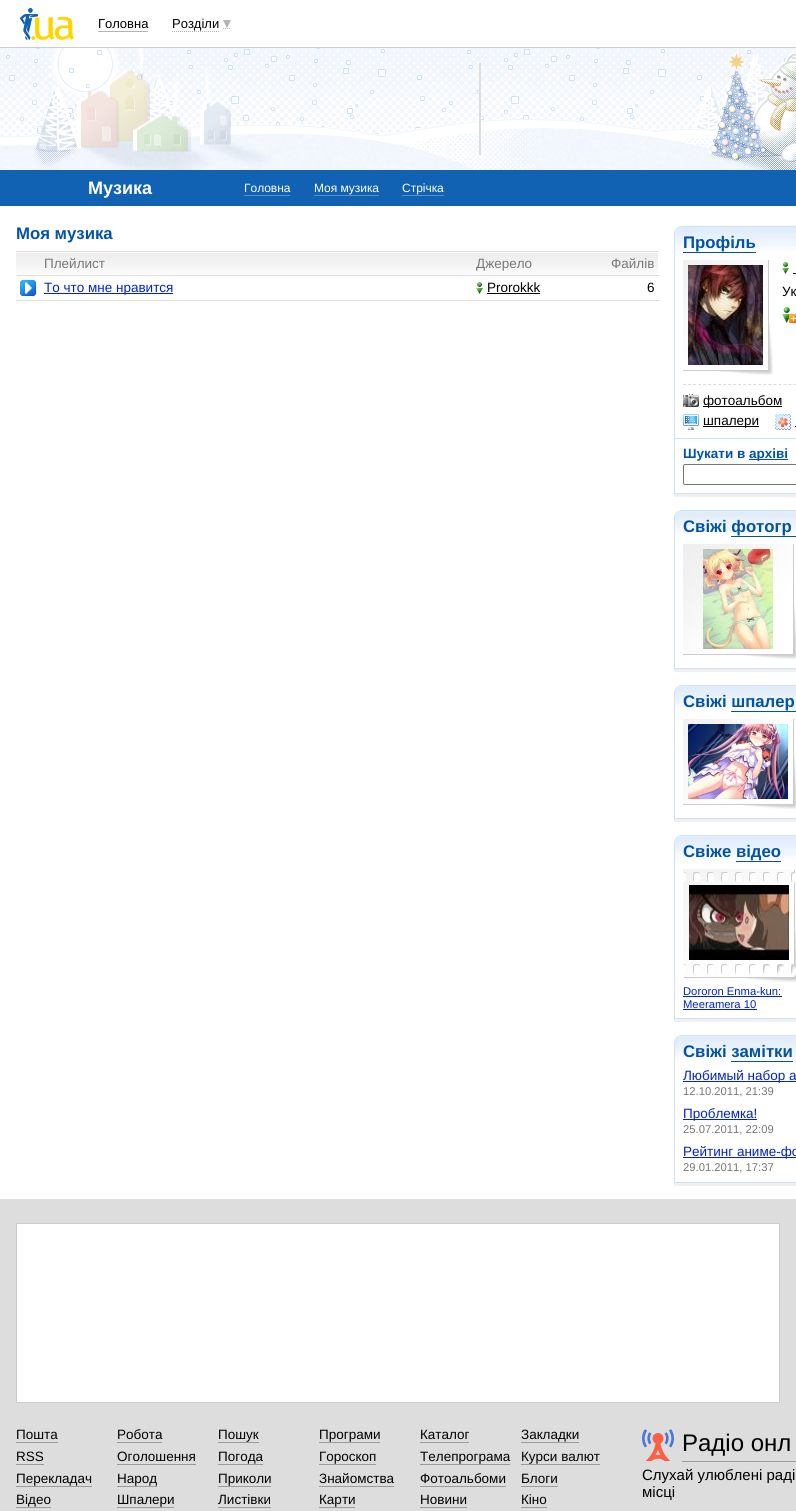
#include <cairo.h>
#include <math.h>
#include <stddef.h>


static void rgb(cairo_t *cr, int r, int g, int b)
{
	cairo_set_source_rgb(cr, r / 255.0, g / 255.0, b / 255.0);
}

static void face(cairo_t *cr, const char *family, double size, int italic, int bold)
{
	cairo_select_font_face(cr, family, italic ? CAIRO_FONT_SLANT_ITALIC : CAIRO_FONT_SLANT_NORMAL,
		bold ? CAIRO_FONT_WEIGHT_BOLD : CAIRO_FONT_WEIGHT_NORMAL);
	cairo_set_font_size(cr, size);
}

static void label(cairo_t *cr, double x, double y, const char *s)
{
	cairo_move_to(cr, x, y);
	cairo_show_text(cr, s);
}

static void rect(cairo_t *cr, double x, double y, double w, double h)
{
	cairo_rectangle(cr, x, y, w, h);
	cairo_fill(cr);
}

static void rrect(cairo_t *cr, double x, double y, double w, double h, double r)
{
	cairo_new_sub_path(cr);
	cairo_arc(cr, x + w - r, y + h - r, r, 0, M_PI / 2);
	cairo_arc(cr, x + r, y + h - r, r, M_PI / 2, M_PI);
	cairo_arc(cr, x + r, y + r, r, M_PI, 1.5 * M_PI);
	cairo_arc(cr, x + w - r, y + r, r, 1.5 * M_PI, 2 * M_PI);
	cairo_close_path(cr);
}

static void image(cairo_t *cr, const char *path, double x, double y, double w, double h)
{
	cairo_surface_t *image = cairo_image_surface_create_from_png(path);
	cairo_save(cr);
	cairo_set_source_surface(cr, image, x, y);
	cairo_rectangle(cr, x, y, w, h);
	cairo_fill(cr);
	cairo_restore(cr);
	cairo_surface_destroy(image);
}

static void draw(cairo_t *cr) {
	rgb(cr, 255, 255, 255);
	cairo_paint(cr);
	rgb(cr, 204, 204, 204);
	rect(cr, 0, 47, 796, 1);
	image(cr, "image0.png", 20, 8, 54, 32);
	face(cr, "Liberation Sans", 13, 0, 0);
	rgb(cr, 0, 0, 0);
	label(cr, 98, 28, "Головна");
	rgb(cr, 179, 179, 179);
	rect(cr, 98, 31, 50, 1);
	cairo_new_path(cr);
	cairo_move_to(cr, 172, 31.5);
	cairo_line_to(cr, 219, 31.5);
	cairo_move_to(cr, 223, 28.5);
	cairo_line_to(cr, 231, 28.5);
	cairo_set_line_width(cr, 1);
	cairo_set_dash(cr, (double[]){1, 1}, 2, 0);
	cairo_stroke(cr);
	rgb(cr, 0, 0, 0);
	label(cr, 172, 28, "Розділи");
	rgb(cr, 179, 179, 179);
	cairo_new_path(cr);
	cairo_move_to(cr, 223, 20);
	cairo_line_to(cr, 231, 20);
	cairo_line_to(cr, 227, 28);
	cairo_close_path(cr);
	cairo_fill(cr);
	image(cr, "image1.png", 0, 48, 796, 122);
	rgb(cr, 221, 221, 221);
	rect(cr, 479, 63, 2, 92);
	rgb(cr, 17, 98, 179);
	rect(cr, 0, 170, 796, 36);
	face(cr, "Liberation Sans", 18, 0, 1);
	rgb(cr, 255, 255, 255);
	label(cr, 88, 194, "Музика");
	face(cr, "Liberation Sans", 12, 0, 0);
	label(cr, 244, 192, "Головна");
	rgb(cr, 88, 145, 202);
	rect(cr, 244, 195, 46, 1);
	rgb(cr, 255, 255, 255);
	label(cr, 314, 192, "Моя музика");
	rgb(cr, 88, 145, 202);
	rect(cr, 314, 195, 65, 1);
	rgb(cr, 255, 255, 255);
	label(cr, 402, 192, "Стрічка");
	rgb(cr, 88, 145, 202);
	rect(cr, 402, 195, 42, 1);
	face(cr, "Liberation Sans", 16.75, 0, 1);
	rgb(cr, 0, 83, 165);
	label(cr, 16, 239, "Моя музика");
	rgb(cr, 221, 221, 221);
	rect(cr, 16, 251, 642, 1);
	rect(cr, 16, 300, 643, 1);
	image(cr, "image2.png", 16, 253, 24, 21);
	image(cr, "image3.png", 40, 253, 432, 21);
	face(cr, "Liberation Sans", 13.5, 0, 0);
	rgb(cr, 119, 119, 119);
	label(cr, 44, 268, "Плейлист");
	image(cr, "image4.png", 472, 253, 135, 21);
	label(cr, 476, 268, "Джерело");
	image(cr, "image5.png", 607, 253, 51, 21);
	rgb(cr, 221, 221, 221);
	rect(cr, 16, 275, 643, 1);
	rgb(cr, 119, 119, 119);
	label(cr, 611, 268, "Файлів");
	image(cr, "image6.png", 20, 280, 16, 16);
	rgb(cr, 0, 34, 204);
	rect(cr, 44, 293, 129, 1);
	label(cr, 44, 292, "То что мне нравится");
	image(cr, "image7.png", 476, 282, 7, 12);
	rgb(cr, 0, 0, 0);
	label(cr, 487, 292, "Prorokkk");
	rect(cr, 487, 293, 53, 1);
	label(cr, 647, 292, "6");
	rgb(cr, 240, 240, 240);
	rect(cr, 674, 494, 122, 3);
	image(cr, "image9.png", 675, 227, 121, 24);
	cairo_rectangle(cr, 674.5, 226.5, 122, 267);
	rgb(cr, 206, 227, 247);
	cairo_set_dash(cr, NULL, 0, 0);
	cairo_stroke(cr);
	image(cr, "image8.png", 674, 226, 7, 7);
	face(cr, "Liberation Sans", 16.75, 0, 1);
	rgb(cr, 0, 83, 165);
	label(cr, 683, 248, "Профіль");
	rect(cr, 683, 252, 73, 1);
	image(cr, "image10.png", 683, 260, 90, 115);
	image(cr, "image11.png", 688, 265, 75, 100);
	image(cr, "image7.png", 782, 262, 7, 12);
	rgb(cr, 0, 0, 0);
	rect(cr, 793, 273, 3, 1);
	face(cr, "Liberation Sans", 13.5, 0, 0);
	label(cr, 782, 296, "Ук");
	image(cr, "image12.png", 782, 307, 14, 16);
	cairo_new_path(cr);
	cairo_move_to(cr, 683, 384.5);
	cairo_line_to(cr, 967, 384.5);
	rgb(cr, 221, 221, 221);
	cairo_set_dash(cr, (double[]){3, 2.02}, 2, 0);
	cairo_stroke(cr);
	image(cr, "image13.png", 683, 394, 16, 13);
	rgb(cr, 0, 0, 0);
	rect(cr, 703, 406, 79, 1);
	label(cr, 703, 405, "фотоальбом");
	image(cr, "image14.png", 683, 414, 16, 16);
	rect(cr, 703, 426, 56, 1);
	label(cr, 703, 425, "шпалери");
	image(cr, "image15.png", 775, 414, 16, 16);
	rect(cr, 795, 426, 1, 1);
	rgb(cr, 206, 227, 247);
	rect(cr, 675, 438, 121, 1);
	face(cr, "Liberation Sans", 13.5, 0, 1);
	rgb(cr, 0, 83, 165);
	label(cr, 683, 458, "Шукати в");
	rect(cr, 749, 459, 39, 1);
	label(cr, 749, 458, "архіві");
	rrect(cr, 683.5, 464.5, 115, 20, 1.5);
	rgb(cr, 118, 118, 118);
	cairo_set_dash(cr, NULL, 0, 0);
	cairo_stroke(cr);
	rgb(cr, 240, 240, 240);
	rect(cr, 674, 669, 122, 3);
	image(cr, "image9.png", 675, 511, 121, 24);
	cairo_rectangle(cr, 674.5, 510.5, 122, 158);
	rgb(cr, 206, 227, 247);
	cairo_stroke(cr);
	image(cr, "image8.png", 674, 510, 7, 7);
	face(cr, "Liberation Sans", 16.75, 0, 1);
	rgb(cr, 0, 83, 165);
	label(cr, 683, 532, "Свіжі фотогр");
	rect(cr, 731, 536, 65, 1);
	image(cr, "image16.png", 683, 544, 113, 115);
	image(cr, "image17.png", 703, 549, 70, 100);
	rgb(cr, 240, 240, 240);
	rect(cr, 674, 819, 122, 3);
	image(cr, "image9.png", 675, 686, 121, 24);
	cairo_rectangle(cr, 674.5, 685.5, 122, 133);
	rgb(cr, 206, 227, 247);
	cairo_stroke(cr);
	image(cr, "image8.png", 674, 685, 7, 7);
	rgb(cr, 0, 83, 165);
	label(cr, 683, 707, "Свіжі шпалер");
	rect(cr, 731, 711, 65, 1);
	image(cr, "image18.png", 683, 719, 113, 90);
	image(cr, "image19.png", 688, 724, 100, 75);
	rgb(cr, 240, 240, 240);
	rect(cr, 674, 1019, 122, 3);
	image(cr, "image9.png", 675, 836, 121, 24);
	cairo_rectangle(cr, 674.5, 835.5, 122, 183);
	rgb(cr, 206, 227, 247);
	cairo_stroke(cr);
	image(cr, "image8.png", 674, 835, 7, 7);
	rgb(cr, 0, 83, 165);
	label(cr, 683, 857, "Свіже відео");
	rect(cr, 736, 861, 45, 1);
	image(cr, "image20.png", 683, 869, 113, 113);
	image(cr, "image21.png", 689, 885, 100, 75);
	face(cr, "Liberation Sans", 11.25, 0, 0);
	rgb(cr, 0, 34, 204);
	label(cr, 683, 995, "Dororon Enma-kun:");
	rect(cr, 683, 996, 99, 1);
	label(cr, 683, 1008, "Meeramera 10");
	rect(cr, 683, 1009, 74, 1);
	rgb(cr, 240, 240, 240);
	rect(cr, 674, 1183, 122, 3);
	image(cr, "image9.png", 675, 1036, 121, 24);
	cairo_rectangle(cr, 674.5, 1035.5, 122, 147);
	rgb(cr, 206, 227, 247);
	cairo_stroke(cr);
	image(cr, "image8.png", 674, 1035, 7, 7);
	face(cr, "Liberation Sans", 16.75, 0, 1);
	rgb(cr, 0, 83, 165);
	label(cr, 683, 1057, "Свіжі замітки");
	rect(cr, 731, 1061, 62, 1);
	rgb(cr, 0, 34, 204);
	rect(cr, 683, 1081, 113, 1);
	face(cr, "Liberation Sans", 13.5, 0, 0);
	label(cr, 683, 1080, "Любимый набор а");
	face(cr, "Liberation Sans", 11.25, 0, 0);
	rgb(cr, 119, 119, 119);
	label(cr, 683, 1095, "12.10.2011, 21:39");
	rgb(cr, 0, 34, 204);
	rect(cr, 683, 1119, 74, 1);
	face(cr, "Liberation Sans", 13.5, 0, 0);
	label(cr, 683, 1118, "Проблемка!");
	face(cr, "Liberation Sans", 11.25, 0, 0);
	rgb(cr, 119, 119, 119);
	label(cr, 683, 1133, "25.07.2011, 22:09");
	rgb(cr, 0, 34, 204);
	rect(cr, 683, 1157, 113, 1);
	face(cr, "Liberation Sans", 13.5, 0, 0);
	label(cr, 683, 1156, "Рейтинг аниме-фо");
	face(cr, "Liberation Sans", 11.25, 0, 0);
	rgb(cr, 119, 119, 119);
	label(cr, 683, 1171, "29.01.2011, 17:37");
	rgb(cr, 221, 221, 221);
	rect(cr, 0, 1199, 796, 312);
	rgb(cr, 255, 255, 255);
	cairo_rectangle(cr, 16.5, 1223.5, 763, 179);
	cairo_fill_preserve(cr);
	rgb(cr, 204, 204, 204);
	cairo_stroke(cr);
	face(cr, "Liberation Sans", 13.5, 0, 0);
	rgb(cr, 0, 0, 0);
	label(cr, 16, 1439, "Пошта");
	rgb(cr, 155, 155, 155);
	rect(cr, 16, 1442, 42, 1);
	rgb(cr, 0, 0, 0);
	label(cr, 117, 1439, "Робота");
	rgb(cr, 155, 155, 155);
	rect(cr, 117, 1442, 45, 1);
	rgb(cr, 0, 0, 0);
	label(cr, 218, 1439, "Пошук");
	rgb(cr, 155, 155, 155);
	rect(cr, 218, 1442, 41, 1);
	rgb(cr, 0, 0, 0);
	label(cr, 319, 1439, "Програми");
	rgb(cr, 155, 155, 155);
	rect(cr, 319, 1442, 61, 1);
	rgb(cr, 0, 0, 0);
	label(cr, 420, 1439, "Каталог");
	rgb(cr, 155, 155, 155);
	rect(cr, 420, 1442, 49, 1);
	rgb(cr, 0, 0, 0);
	label(cr, 521, 1439, "Закладки");
	rgb(cr, 155, 155, 155);
	rect(cr, 521, 1442, 58, 1);
	rgb(cr, 0, 0, 0);
	label(cr, 16, 1461, "RSS");
	rgb(cr, 155, 155, 155);
	rect(cr, 16, 1464, 28, 1);
	rgb(cr, 0, 0, 0);
	label(cr, 117, 1461, "Оголошення");
	rgb(cr, 155, 155, 155);
	rect(cr, 117, 1464, 79, 1);
	rgb(cr, 0, 0, 0);
	label(cr, 218, 1461, "Погода");
	rgb(cr, 155, 155, 155);
	rect(cr, 218, 1464, 45, 1);
	rgb(cr, 0, 0, 0);
	label(cr, 319, 1461, "Гороскоп");
	rgb(cr, 155, 155, 155);
	rect(cr, 319, 1464, 57, 1);
	rgb(cr, 0, 0, 0);
	label(cr, 420, 1461, "Телепрограма");
	rgb(cr, 155, 155, 155);
	rect(cr, 420, 1464, 90, 1);
	rgb(cr, 0, 0, 0);
	label(cr, 521, 1461, "Курси валют");
	rgb(cr, 155, 155, 155);
	rect(cr, 521, 1464, 79, 1);
	rgb(cr, 0, 0, 0);
	label(cr, 16, 1483, "Перекладач");
	rgb(cr, 155, 155, 155);
	rect(cr, 16, 1486, 76, 1);
	rgb(cr, 0, 0, 0);
	label(cr, 117, 1483, "Народ");
	rgb(cr, 155, 155, 155);
	rect(cr, 117, 1486, 40, 1);
	rgb(cr, 0, 0, 0);
	label(cr, 218, 1483, "Приколи");
	rgb(cr, 155, 155, 155);
	rect(cr, 218, 1486, 53, 1);
	rgb(cr, 0, 0, 0);
	label(cr, 319, 1483, "Знайомства");
	rgb(cr, 155, 155, 155);
	rect(cr, 319, 1486, 75, 1);
	rgb(cr, 0, 0, 0);
	label(cr, 420, 1483, "Фотоальбоми");
	rgb(cr, 155, 155, 155);
	rect(cr, 420, 1486, 86, 1);
	rgb(cr, 0, 0, 0);
	label(cr, 521, 1483, "Блоги");
	rgb(cr, 155, 155, 155);
	rect(cr, 521, 1486, 37, 1);
	rgb(cr, 0, 0, 0);
	label(cr, 16, 1504, "Відео");
	rgb(cr, 155, 155, 155);
	rect(cr, 16, 1507, 35, 1);
	rgb(cr, 0, 0, 0);
	label(cr, 117, 1504, "Шпалери");
	rgb(cr, 155, 155, 155);
	rect(cr, 117, 1507, 57, 1);
	rgb(cr, 0, 0, 0);
	label(cr, 218, 1504, "Листівки");
	rgb(cr, 155, 155, 155);
	rect(cr, 218, 1507, 53, 1);
	rgb(cr, 0, 0, 0);
	label(cr, 319, 1504, "Карти");
	rgb(cr, 155, 155, 155);
	rect(cr, 319, 1507, 36, 1);
	rgb(cr, 0, 0, 0);
	label(cr, 420, 1504, "Новини");
	rgb(cr, 155, 155, 155);
	rect(cr, 420, 1507, 47, 1);
	rgb(cr, 0, 0, 0);
	label(cr, 521, 1504, "Кіно");
	rgb(cr, 155, 155, 155);
	rect(cr, 521, 1507, 26, 1);
	rect(cr, 682, 1461, 114, 1);
	image(cr, "image22.png", 642, 1429, 32, 32);
	face(cr, "Liberation Sans", 24, 0, 0);
	rgb(cr, 0, 0, 0);
	label(cr, 682, 1451, "Радіо онл");
	face(cr, "Liberation Sans", 15, 0, 0);
	label(cr, 642, 1480, "Слухай улюблені раді");
	label(cr, 642, 1497, "місці");
}

int main(void) {
	cairo_surface_t *surface = cairo_image_surface_create(CAIRO_FORMAT_RGB24, 796, 1511);
	cairo_t *cr = cairo_create(surface);
	cairo_font_options_t *options = cairo_font_options_create();
	cairo_font_options_set_hint_metrics(options, CAIRO_HINT_METRICS_OFF);
	cairo_font_options_set_hint_style(options, CAIRO_HINT_STYLE_NONE);
	cairo_set_font_options(cr, options);
	cairo_set_miter_limit(cr, 4);
	draw(cr);
	cairo_surface_write_to_png(surface, "render.png");
	cairo_font_options_destroy(options);
	cairo_destroy(cr);
	cairo_surface_destroy(surface);
	return 0;
}
